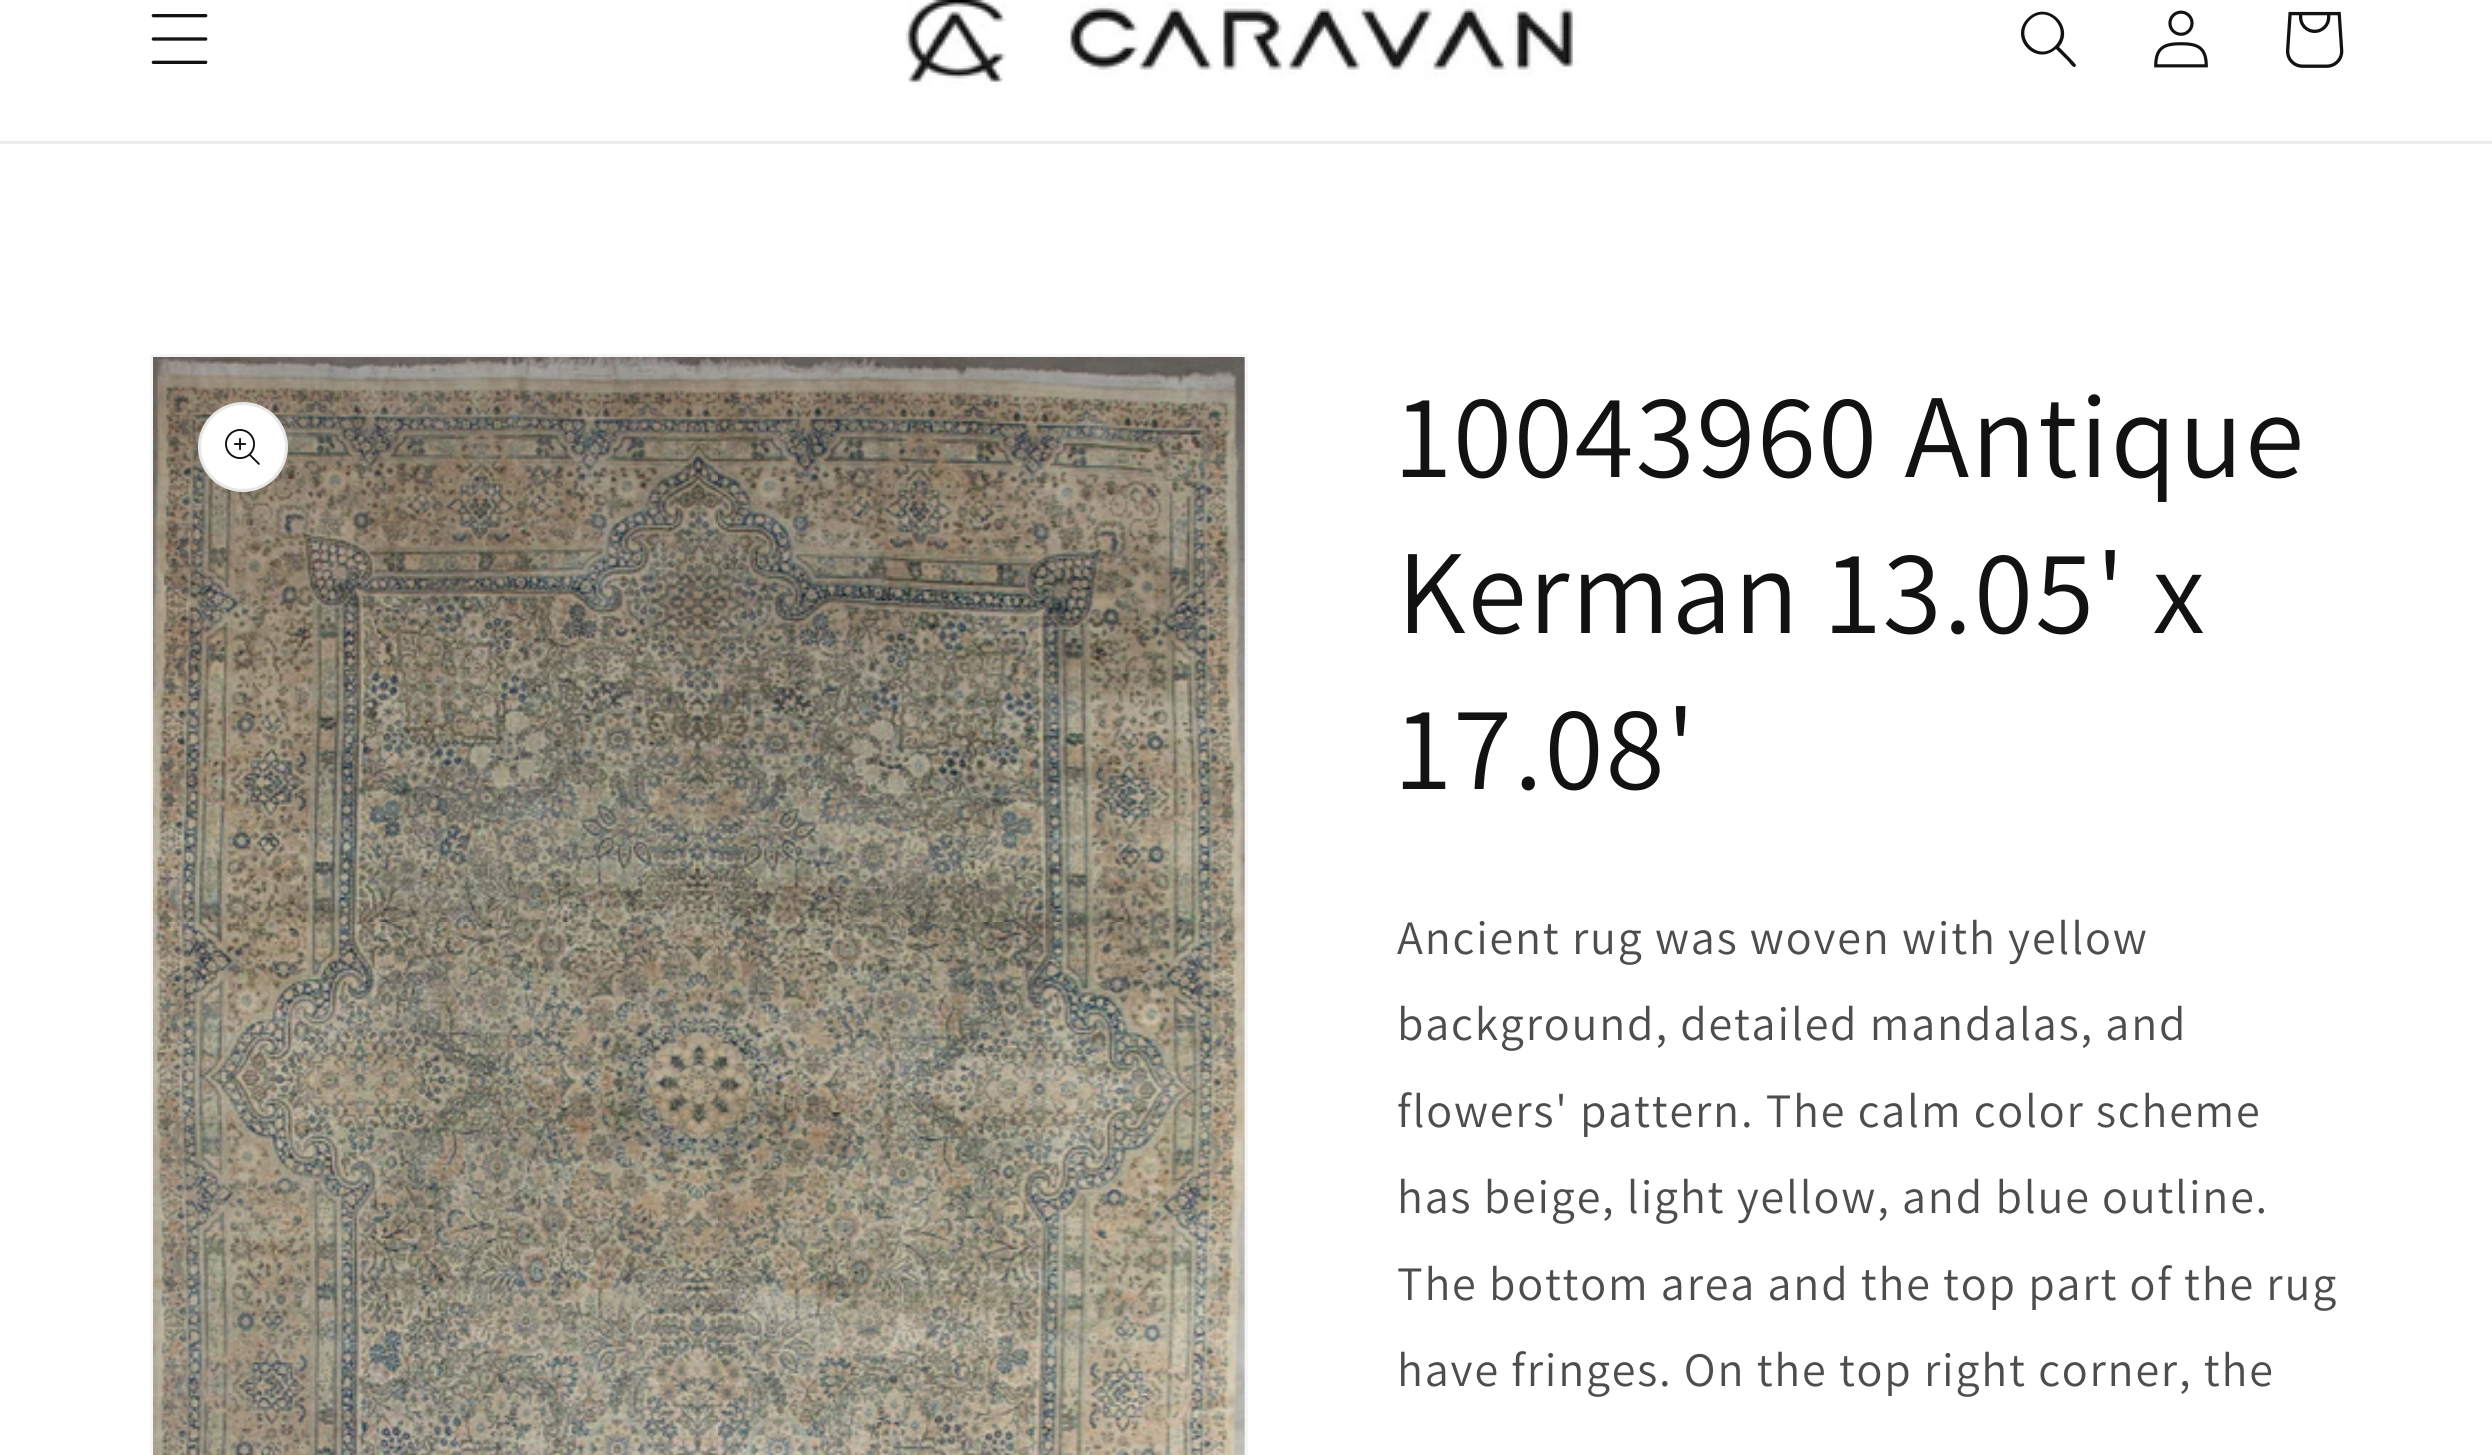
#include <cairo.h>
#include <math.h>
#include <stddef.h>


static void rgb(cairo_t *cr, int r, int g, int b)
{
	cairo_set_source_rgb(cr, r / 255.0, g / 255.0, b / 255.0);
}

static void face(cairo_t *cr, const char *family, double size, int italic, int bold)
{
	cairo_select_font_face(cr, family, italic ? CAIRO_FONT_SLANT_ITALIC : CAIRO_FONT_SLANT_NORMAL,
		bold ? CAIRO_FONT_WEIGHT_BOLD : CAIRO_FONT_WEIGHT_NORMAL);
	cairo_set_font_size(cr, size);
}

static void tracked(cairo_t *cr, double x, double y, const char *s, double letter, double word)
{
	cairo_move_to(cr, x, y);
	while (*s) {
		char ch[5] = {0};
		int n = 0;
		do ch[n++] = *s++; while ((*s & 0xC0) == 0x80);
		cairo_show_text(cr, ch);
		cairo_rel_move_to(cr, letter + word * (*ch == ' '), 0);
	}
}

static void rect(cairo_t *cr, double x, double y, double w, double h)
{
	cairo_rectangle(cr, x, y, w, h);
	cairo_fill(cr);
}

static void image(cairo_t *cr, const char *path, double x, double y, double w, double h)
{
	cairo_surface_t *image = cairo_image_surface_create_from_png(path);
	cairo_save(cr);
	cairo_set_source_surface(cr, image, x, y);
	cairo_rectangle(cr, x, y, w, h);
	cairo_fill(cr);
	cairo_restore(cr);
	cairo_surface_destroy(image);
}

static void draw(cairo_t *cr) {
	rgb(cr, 255, 255, 255);
	cairo_paint(cr);
	rgb(cr, 236, 236, 236);
	rect(cr, 0, 141, 2492, 3);
	image(cr, "image0.png", 151, 14, 57, 50);
	image(cr, "image1.png", 905, 0, 675, 86);
	rgb(cr, 18, 18, 18);
	cairo_set_fill_rule(cr, CAIRO_FILL_RULE_EVEN_ODD);
	cairo_new_path(cr);
	cairo_move_to(cr, 2055, 46);
	cairo_curve_to(cr, 2038, 63, 2013, 37, 2030, 20);
	cairo_curve_to(cr, 2047, 3, 2072, 29, 2055, 46);
	cairo_close_path(cr);
	cairo_move_to(cr, 2056, 49);
	cairo_curve_to(cr, 2035, 67, 2008, 37, 2028, 18);
	cairo_curve_to(cr, 2047, -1, 2076, 27, 2059, 47);
	cairo_curve_to(cr, 2061, 49, 2076, 64, 2076, 65);
	cairo_line_to(cr, 2075, 67);
	cairo_curve_to(cr, 2073, 68, 2069, 62, 2068, 61);
	cairo_close_path(cr);
	cairo_fill(cr);
	image(cr, "image2.png", 2154, 10, 54, 58);
	image(cr, "image3.png", 2286, 11, 58, 57);
	cairo_rectangle(cr, 151.5, 355.5, 1095, 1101);
	rgb(cr, 246, 246, 246);
	cairo_set_line_width(cr, 3);
	cairo_stroke(cr);
	image(cr, "image4.png", 153, 357, 1092, 1098);
	rgb(cr, 255, 255, 255);
	cairo_arc(cr, 243, 447, 45, 0, 2 * M_PI);
	cairo_fill(cr);
	cairo_arc(cr, 243, 447, 43.5, 0, 2 * M_PI);
	cairo_set_source_rgba(cr, 0.071, 0.071, 0.071, 0.1);
	cairo_stroke(cr);
	image(cr, "image5.png", 225, 429, 35, 36);
	face(cr, "Assistant", 120, 0, 0);
	rgb(cr, 18, 18, 18);
	tracked(cr, 1397, 477, "10043960 Antique", 1.8, 0);
	tracked(cr, 1397, 633, "Kerman 13.05' x", 1.8, 0);
	tracked(cr, 1397, 789, "17.08'", 1.8, 0);
	face(cr, "Assistant", 48, 0, 0);
	rgb(cr, 77, 77, 77);
	tracked(cr, 1397, 954, "Ancient rug was woven with yellow", 1.8, 0);
	tracked(cr, 1397, 1040, "background, detailed mandalas, and", 1.8, 0);
	tracked(cr, 1397, 1127, "flowers' pattern. The calm color scheme", 1.8, 0);
	tracked(cr, 1397, 1213, "has beige, light yellow, and blue outline.", 1.8, 0);
	tracked(cr, 1397, 1300, "The bottom area and the top part of the rug", 1.8, 0);
	tracked(cr, 1397, 1386, "have fringes. On the top right corner, the", 1.8, 0);
}

int main(void) {
	cairo_surface_t *surface = cairo_image_surface_create(CAIRO_FORMAT_RGB24, 2492, 1455);
	cairo_t *cr = cairo_create(surface);
	cairo_font_options_t *options = cairo_font_options_create();
	cairo_font_options_set_hint_metrics(options, CAIRO_HINT_METRICS_OFF);
	cairo_font_options_set_hint_style(options, CAIRO_HINT_STYLE_NONE);
	cairo_set_font_options(cr, options);
	cairo_set_miter_limit(cr, 4);
	draw(cr);
	cairo_surface_write_to_png(surface, "render.png");
	cairo_font_options_destroy(options);
	cairo_destroy(cr);
	cairo_surface_destroy(surface);
	return 0;
}
